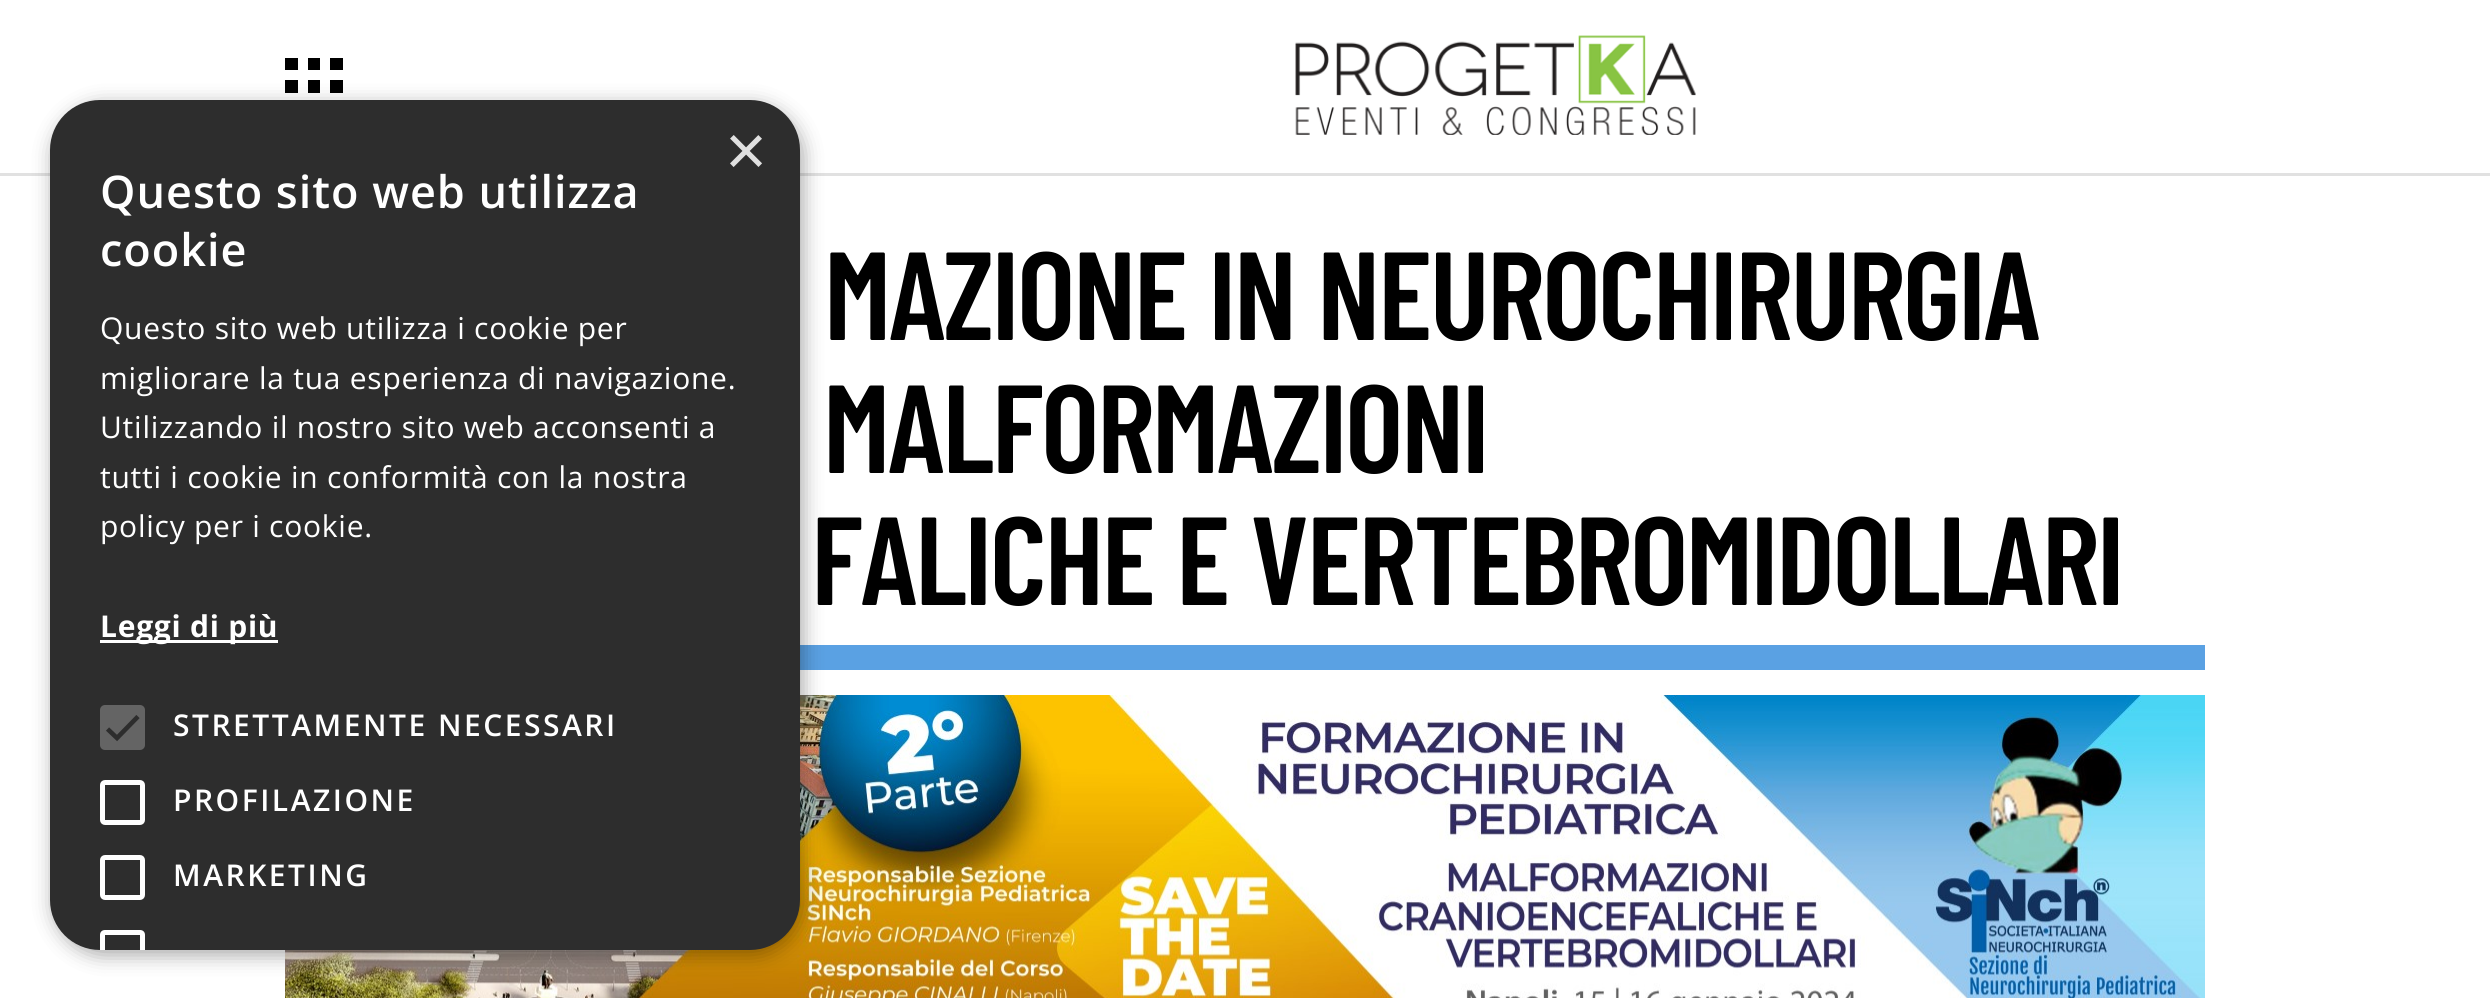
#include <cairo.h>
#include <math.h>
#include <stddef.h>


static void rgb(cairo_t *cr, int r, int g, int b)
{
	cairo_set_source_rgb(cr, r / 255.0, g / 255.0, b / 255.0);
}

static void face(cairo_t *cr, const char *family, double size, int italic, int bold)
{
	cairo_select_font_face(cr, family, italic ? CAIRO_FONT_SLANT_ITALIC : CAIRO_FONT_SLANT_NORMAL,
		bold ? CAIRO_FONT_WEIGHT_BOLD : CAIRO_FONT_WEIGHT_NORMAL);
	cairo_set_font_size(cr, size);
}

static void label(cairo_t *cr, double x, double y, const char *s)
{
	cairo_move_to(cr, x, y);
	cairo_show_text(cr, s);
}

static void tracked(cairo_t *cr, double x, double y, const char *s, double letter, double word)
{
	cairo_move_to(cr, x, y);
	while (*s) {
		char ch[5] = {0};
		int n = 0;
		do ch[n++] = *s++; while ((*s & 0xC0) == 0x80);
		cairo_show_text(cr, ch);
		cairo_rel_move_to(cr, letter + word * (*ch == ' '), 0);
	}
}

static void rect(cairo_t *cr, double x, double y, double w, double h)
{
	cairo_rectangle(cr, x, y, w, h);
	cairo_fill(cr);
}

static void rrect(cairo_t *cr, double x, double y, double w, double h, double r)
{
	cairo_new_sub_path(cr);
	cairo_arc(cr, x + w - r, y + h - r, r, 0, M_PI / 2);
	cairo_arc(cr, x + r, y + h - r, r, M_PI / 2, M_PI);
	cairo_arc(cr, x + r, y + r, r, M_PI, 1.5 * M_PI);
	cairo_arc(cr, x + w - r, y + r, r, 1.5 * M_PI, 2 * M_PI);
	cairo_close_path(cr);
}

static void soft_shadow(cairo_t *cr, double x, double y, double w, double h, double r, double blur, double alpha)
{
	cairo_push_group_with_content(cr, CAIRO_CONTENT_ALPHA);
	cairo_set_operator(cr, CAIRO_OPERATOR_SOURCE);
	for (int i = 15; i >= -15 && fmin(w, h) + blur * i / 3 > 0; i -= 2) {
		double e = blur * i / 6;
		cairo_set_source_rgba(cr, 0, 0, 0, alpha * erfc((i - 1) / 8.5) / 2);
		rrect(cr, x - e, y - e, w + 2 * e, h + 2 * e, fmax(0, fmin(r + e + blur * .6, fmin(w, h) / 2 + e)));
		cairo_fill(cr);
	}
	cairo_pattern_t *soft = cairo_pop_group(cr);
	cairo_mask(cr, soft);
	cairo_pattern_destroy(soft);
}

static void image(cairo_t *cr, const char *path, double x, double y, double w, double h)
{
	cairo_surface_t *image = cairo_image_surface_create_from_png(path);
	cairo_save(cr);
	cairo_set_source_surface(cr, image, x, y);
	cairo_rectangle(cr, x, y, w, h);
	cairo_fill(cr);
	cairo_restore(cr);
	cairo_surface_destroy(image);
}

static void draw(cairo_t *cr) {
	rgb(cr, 255, 255, 255);
	cairo_paint(cr);
	rgb(cr, 225, 225, 225);
	rect(cr, 0, 173, 2490, 3);
	rgb(cr, 0, 0, 0);
	rect(cr, 285, 80, 13, 13);
	rect(cr, 308, 80, 12, 13);
	rect(cr, 330, 80, 13, 13);
	rgb(cr, 90, 161, 227);
	rect(cr, 800, 645, 1405, 25);
	image(cr, "image1.png", 285, 695, 1920, 303);
	rgb(cr, 0, 0, 0);
	soft_shadow(cr, 53, 105, 750, 850, 50, 10, 0.35);
	rgb(cr, 45, 45, 45);
	rrect(cr, 50, 100, 750, 850, 50);
	cairo_fill(cr);
	face(cr, "Liberation Sans", 72, 0, 0);
	rgb(cr, 224, 224, 224);
	label(cr, 725, 175, "×");
	face(cr, "Open Sans SemiBold", 45, 0, 0);
	rgb(cr, 255, 255, 255);
	tracked(cr, 100, 208, "Questo sito web utilizza", 1, 0);
	tracked(cr, 100, 266, "cookie", 1, 0);
	face(cr, "Open Sans", 30, 0, 0);
	tracked(cr, 100, 339, "Questo sito web utilizza i cookie per", 0.75, 0);
	tracked(cr, 100, 389, "migliorare la tua esperienza di navigazione.", 0.75, 0);
	tracked(cr, 100, 438, "Utilizzando il nostro sito web acconsenti a", 0.75, 0);
	tracked(cr, 100, 488, "tutti i cookie in conformità con la nostra", 0.75, 0);
	tracked(cr, 100, 537, "policy per i cookie.", 0.75, 0);
	rect(cr, 100, 640, 178, 3);
	face(cr, "Open Sans", 30, 0, 1);
	tracked(cr, 100, 637, "Leggi di più", 0.75, 0);
	rgb(cr, 100, 100, 100);
	rrect(cr, 100, 705, 45, 45, 5);
	cairo_fill(cr);
	cairo_new_path(cr);
	cairo_move_to(cr, 107.5, 729);
	cairo_line_to(cr, 117, 738);
	cairo_line_to(cr, 138, 716.5);
	rgb(cr, 45, 45, 45);
	cairo_set_line_width(cr, 4.6);
	cairo_stroke(cr);
	face(cr, "Open Sans SemiBold", 30, 0, 0);
	rgb(cr, 255, 255, 255);
	tracked(cr, 173, 736, "STRETTAMENTE NECESSARI", 2.5, 0);
	rrect(cr, 102.5, 782.5, 40, 40, 2.5);
	cairo_set_line_width(cr, 5);
	cairo_stroke(cr);
	tracked(cr, 173, 811, "PROFILAZIONE", 2.5, 0);
	rrect(cr, 102.5, 857.5, 40, 40, 2.5);
	cairo_stroke(cr);
	tracked(cr, 173, 886, "MARKETING", 2.5, 0);
	cairo_new_path(cr);
	cairo_move_to(cr, 105, 930);
	cairo_curve_to(cr, 102, 930, 100, 932, 100, 935);
	cairo_line_to(cr, 100, 950);
	cairo_line_to(cr, 105, 950);
	cairo_line_to(cr, 105, 935);
	cairo_line_to(cr, 140, 935);
	cairo_line_to(cr, 140, 950);
	cairo_line_to(cr, 145, 950);
	cairo_line_to(cr, 145, 935);
	cairo_curve_to(cr, 145, 932, 143, 930, 140, 930);
	cairo_close_path(cr);
	cairo_fill(cr);
	rgb(cr, 0, 0, 0);
	rect(cr, 285, 58, 13, 12);
	rect(cr, 308, 58, 12, 12);
	rect(cr, 330, 58, 13, 12);
	image(cr, "image0.png", 1295, 35, 401, 100);
	face(cr, "Barlow Condensed SemiBold", 125, 0, 0);
	tracked(cr, 824, 340, "MAZIONE IN NEUROCHIRURGIA", -2.5, 0);
	tracked(cr, 823, 473, "MALFORMAZIONI", -2.5, 0);
	tracked(cr, 811, 605, "FALICHE E VERTEBROMIDOLLARI", -2.5, 0);
}

int main(void) {
	cairo_surface_t *surface = cairo_image_surface_create(CAIRO_FORMAT_RGB24, 2490, 998);
	cairo_t *cr = cairo_create(surface);
	cairo_font_options_t *options = cairo_font_options_create();
	cairo_font_options_set_hint_metrics(options, CAIRO_HINT_METRICS_OFF);
	cairo_font_options_set_hint_style(options, CAIRO_HINT_STYLE_NONE);
	cairo_set_font_options(cr, options);
	cairo_set_miter_limit(cr, 4);
	draw(cr);
	cairo_surface_write_to_png(surface, "render.png");
	cairo_font_options_destroy(options);
	cairo_destroy(cr);
	cairo_surface_destroy(surface);
	return 0;
}
